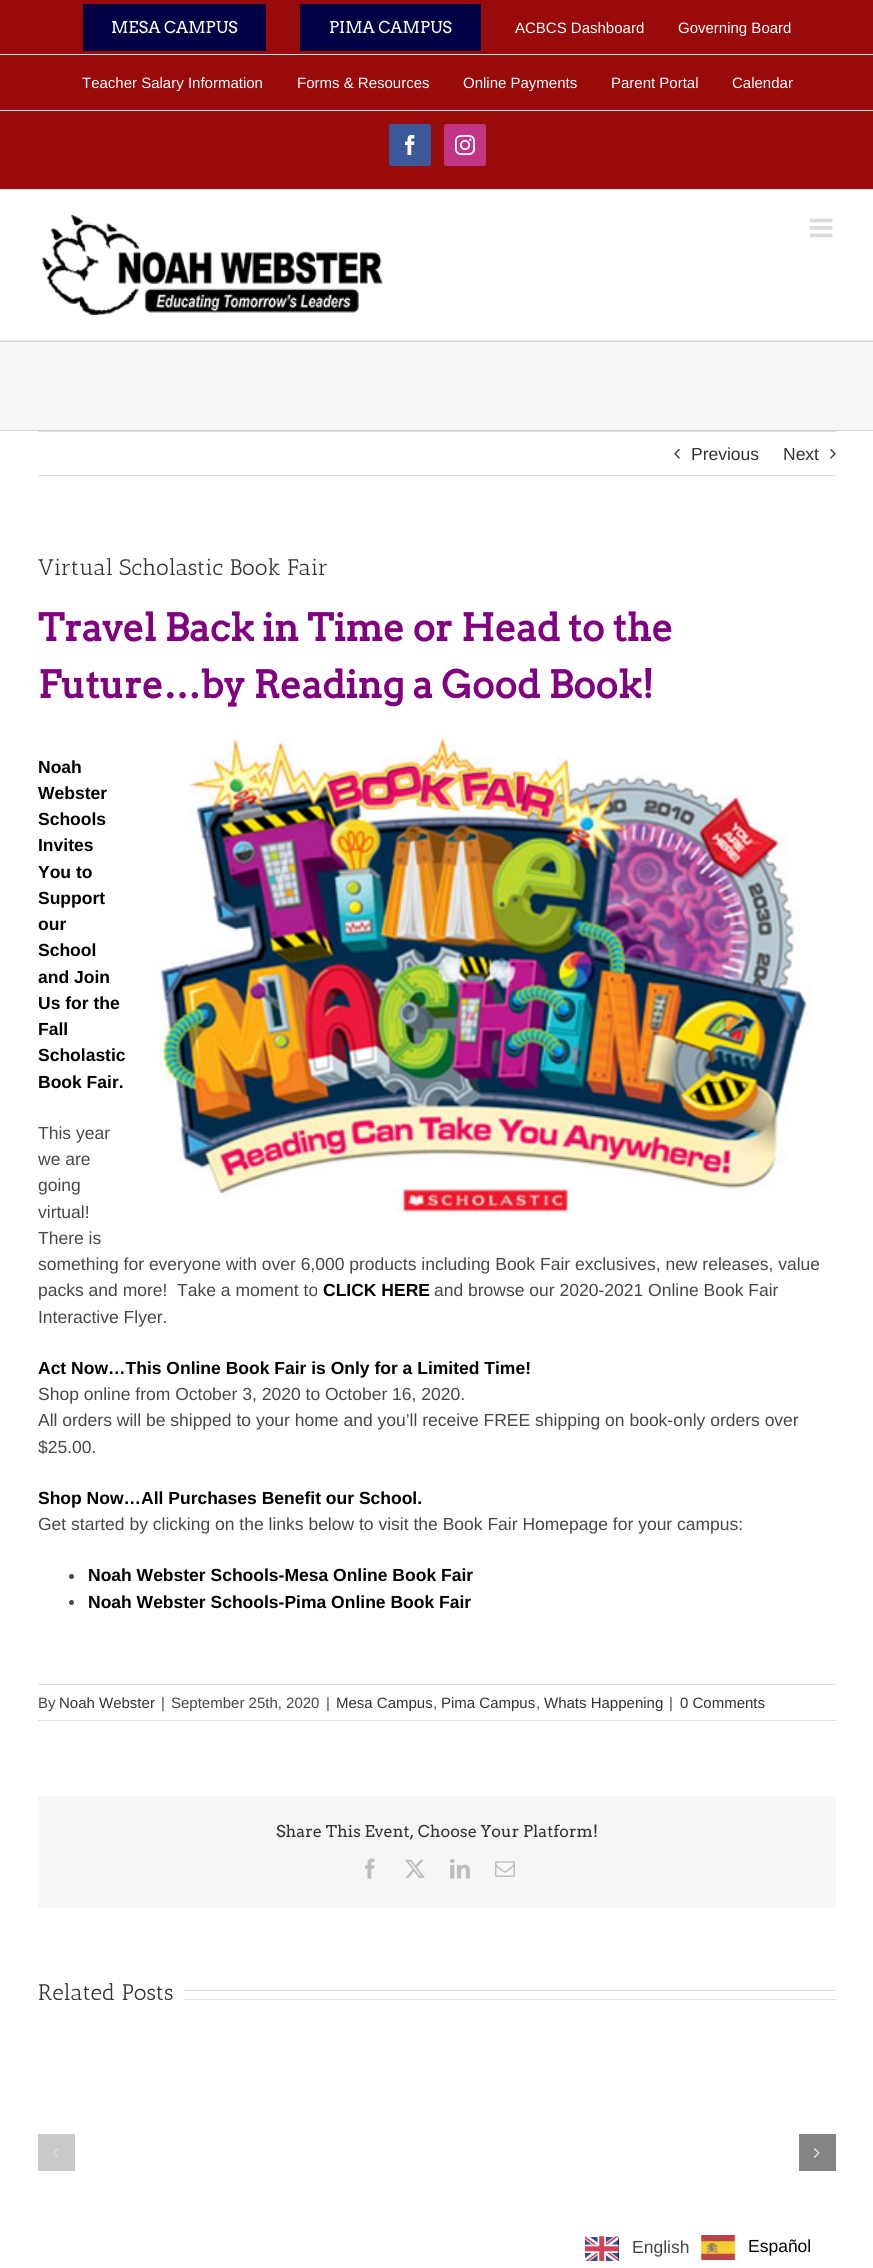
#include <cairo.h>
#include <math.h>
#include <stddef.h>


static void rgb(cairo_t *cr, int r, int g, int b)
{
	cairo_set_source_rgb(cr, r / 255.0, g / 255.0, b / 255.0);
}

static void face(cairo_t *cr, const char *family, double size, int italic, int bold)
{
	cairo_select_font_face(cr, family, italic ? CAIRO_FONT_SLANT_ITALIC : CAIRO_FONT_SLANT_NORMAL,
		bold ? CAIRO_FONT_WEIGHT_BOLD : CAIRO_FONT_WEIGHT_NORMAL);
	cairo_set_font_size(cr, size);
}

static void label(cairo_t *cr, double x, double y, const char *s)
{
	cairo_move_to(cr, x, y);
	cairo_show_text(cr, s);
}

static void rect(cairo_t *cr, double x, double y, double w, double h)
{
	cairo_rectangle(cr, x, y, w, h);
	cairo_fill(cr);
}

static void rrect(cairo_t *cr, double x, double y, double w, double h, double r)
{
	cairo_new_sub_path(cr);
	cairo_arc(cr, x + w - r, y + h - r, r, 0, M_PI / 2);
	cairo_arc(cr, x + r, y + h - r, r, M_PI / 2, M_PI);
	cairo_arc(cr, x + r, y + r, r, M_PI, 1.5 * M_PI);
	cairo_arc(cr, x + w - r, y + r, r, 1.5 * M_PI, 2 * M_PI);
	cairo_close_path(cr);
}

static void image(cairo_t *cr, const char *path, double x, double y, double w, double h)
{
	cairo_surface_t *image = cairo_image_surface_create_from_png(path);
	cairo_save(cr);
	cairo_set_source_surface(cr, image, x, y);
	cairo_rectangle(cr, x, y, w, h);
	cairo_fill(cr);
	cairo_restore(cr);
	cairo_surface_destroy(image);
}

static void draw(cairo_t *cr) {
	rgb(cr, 255, 255, 255);
	cairo_paint(cr);
	rgb(cr, 153, 11, 11);
	rect(cr, 0, 0, 873, 189);
	rgb(cr, 229, 229, 229);
	rect(cr, 0, 189, 873, 1);
	rect(cr, 0, 110, 873, 1);
	rgb(cr, 0, 0, 68);
	rect(cr, 83, 4, 183, 47);
	face(cr, "Arvo", 16.25, 0, 0);
	rgb(cr, 255, 255, 255);
	label(cr, 111, 33, "MESA CAMPUS");
	rgb(cr, 0, 0, 68);
	rect(cr, 300, 4, 181, 47);
	rgb(cr, 255, 255, 255);
	label(cr, 329, 33, "PIMA CAMPUS");
	face(cr, "Liberation Sans", 15, 0, 0);
	label(cr, 515, 33, "ACBCS Dashboard");
	label(cr, 678, 33, "Governing Board");
	rgb(cr, 229, 229, 229);
	rect(cr, 0, 54, 873, 1);
	rgb(cr, 255, 255, 255);
	label(cr, 82, 88, "Teacher Salary Information");
	label(cr, 297, 88, "Forms & Resources");
	label(cr, 463, 88, "Online Payments");
	label(cr, 611, 88, "Parent Portal");
	label(cr, 732, 88, "Calendar");
	rgb(cr, 59, 89, 152);
	rrect(cr, 389.5, 124.5, 41, 41, 2);
	cairo_fill_preserve(cr);
	cairo_set_line_width(cr, 1);
	cairo_stroke(cr);
	image(cr, "image0.png", 405, 135, 10, 20);
	rgb(cr, 193, 53, 132);
	rrect(cr, 444.5, 124.5, 41, 41, 2);
	cairo_fill_preserve(cr);
	cairo_stroke(cr);
	image(cr, "image1.png", 455, 135, 20, 20);
	rgb(cr, 229, 229, 229);
	rect(cr, 0, 340, 873, 1);
	image(cr, "image2.png", 41, 215, 342, 100);
	image(cr, "image3.png", 810, 218, 23, 20);
	rgb(cr, 246, 246, 246);
	rect(cr, 0, 342, 873, 88);
	rgb(cr, 210, 211, 212);
	rect(cr, 0, 341, 873, 1);
	rect(cr, 0, 430, 873, 1);
	rgb(cr, 224, 222, 222);
	rect(cr, 38, 431, 798, 1);
	rect(cr, 38, 475, 798, 1);
	image(cr, "image4.png", 674, 449, 6, 10);
	face(cr, "Liberation Sans", 17.5, 0, 0);
	rgb(cr, 51, 51, 51);
	label(cr, 691, 460, "Previous");
	label(cr, 783, 460, "Next");
	image(cr, "image5.png", 830, 449, 6, 10);
	face(cr, "Antic Slab", 22.5, 0, 0);
	label(cr, 38, 575, "Virtual Scholastic Book Fair");
	face(cr, "Arvo", 37.5, 0, 1);
	rgb(cr, 128, 0, 128);
	label(cr, 38, 641, "Travel Back in Time or Head to the");
	label(cr, 38, 698, "Future…by Reading a Good Book!");
	image(cr, "image6.png", 152, 731, 660, 483);
	face(cr, "Liberation Sans", 17.5, 0, 1);
	rgb(cr, 0, 0, 0);
	label(cr, 38, 773, "Noah");
	label(cr, 38, 799, "Webster");
	label(cr, 38, 825, "Schools");
	label(cr, 38, 851, "Invites");
	label(cr, 38, 878, "You to");
	label(cr, 38, 904, "Support");
	label(cr, 38, 930, "our");
	label(cr, 38, 956, "School");
	label(cr, 38, 983, "and Join");
	label(cr, 38, 1009, "Us for the");
	label(cr, 38, 1035, "Fall");
	label(cr, 38, 1061, "Scholastic");
	label(cr, 38, 1088, "Book Fair.");
	face(cr, "Liberation Sans", 17.5, 0, 0);
	rgb(cr, 71, 71, 71);
	label(cr, 38, 1139, "This year");
	label(cr, 38, 1165, "we are");
	label(cr, 38, 1191, "going");
	label(cr, 38, 1218, "virtual!");
	label(cr, 38, 1244, "There is");
	label(cr, 38, 1270, "something for everyone with over 6,000 products including Book Fair exclusives, new releases, value");
	label(cr, 38, 1296, "packs and more!  Take a moment to");
	face(cr, "Liberation Sans", 17.5, 0, 1);
	rgb(cr, 0, 0, 0);
	label(cr, 323, 1296, "CLICK HERE");
	face(cr, "Liberation Sans", 17.5, 0, 0);
	rgb(cr, 71, 71, 71);
	label(cr, 434, 1296, "and browse our 2020-2021 Online Book Fair");
	label(cr, 38, 1323, "Interactive Flyer.");
	face(cr, "Liberation Sans", 17.5, 0, 1);
	rgb(cr, 0, 0, 0);
	label(cr, 38, 1374, "Act Now…This Online Book Fair is Only for a Limited Time!");
	face(cr, "Liberation Sans", 17.5, 0, 0);
	rgb(cr, 71, 71, 71);
	label(cr, 38, 1400, "Shop online from October 3, 2020 to October 16, 2020.");
	label(cr, 38, 1426, "All orders will be shipped to your home and you’ll receive FREE shipping on book-only orders over");
	label(cr, 38, 1453, "$25.00.");
	face(cr, "Liberation Sans", 17.5, 0, 1);
	rgb(cr, 0, 0, 0);
	label(cr, 38, 1504, "Shop Now…All Purchases Benefit our School.");
	face(cr, "Liberation Sans", 17.5, 0, 0);
	rgb(cr, 71, 71, 71);
	label(cr, 38, 1530, "Get started by clicking on the links below to visit the Book Fair Homepage for your campus:");
	cairo_new_path(cr);
	cairo_arc(cr, 71.5, 1576.5, 2.5, 0, 2 * M_PI);
	cairo_fill(cr);
	face(cr, "Liberation Sans", 17.5, 0, 1);
	rgb(cr, 0, 0, 0);
	label(cr, 88, 1581, "Noah Webster Schools-Mesa Online Book Fair");
	rgb(cr, 71, 71, 71);
	cairo_new_path(cr);
	cairo_arc(cr, 71.5, 1602.5, 2.5, 0, 2 * M_PI);
	cairo_fill(cr);
	rgb(cr, 0, 0, 0);
	label(cr, 88, 1608, "Noah Webster Schools-Pima Online Book Fair");
	rgb(cr, 224, 222, 222);
	rect(cr, 38, 1684, 798, 1);
	rect(cr, 38, 1720, 798, 1);
	face(cr, "Liberation Sans", 15, 0, 0);
	rgb(cr, 71, 71, 71);
	label(cr, 38, 1708, "By");
	rgb(cr, 51, 51, 51);
	label(cr, 59, 1708, "Noah Webster");
	rgb(cr, 71, 71, 71);
	label(cr, 161, 1708, "|");
	label(cr, 171, 1708, "September 25th, 2020");
	label(cr, 326, 1708, "|");
	rgb(cr, 51, 51, 51);
	label(cr, 336, 1708, "Mesa Campus");
	rgb(cr, 71, 71, 71);
	label(cr, 433, 1708, ",");
	rgb(cr, 51, 51, 51);
	label(cr, 441, 1708, "Pima Campus");
	rgb(cr, 71, 71, 71);
	label(cr, 536, 1708, ",");
	rgb(cr, 51, 51, 51);
	label(cr, 544, 1708, "Whats Happening");
	rgb(cr, 71, 71, 71);
	label(cr, 669, 1708, "|");
	rgb(cr, 51, 51, 51);
	label(cr, 680, 1708, "0 Comments");
	rgb(cr, 246, 246, 246);
	rect(cr, 38, 1796, 798, 112);
	face(cr, "Arvo", 16.25, 0, 0);
	rgb(cr, 51, 51, 51);
	label(cr, 276, 1837, "Share This Event, Choose Your Platform!");
	image(cr, "image7.png", 365, 1858, 10, 21);
	image(cr, "image8.png", 405, 1859, 20, 19);
	image(cr, "image9.png", 450, 1859, 20, 20);
	image(cr, "image10.png", 495, 1861, 20, 16);
	face(cr, "Antic Slab", 22.5, 0, 0);
	label(cr, 38, 2000, "Related Posts");
	rgb(cr, 224, 222, 222);
	rect(cr, 184, 1990, 652, 1);
	rect(cr, 184, 1999, 652, 1);
	rgb(cr, 202, 202, 202);
	rect(cr, 38, 2134, 37, 37);
	image(cr, "image11.png", 53, 2148, 6, 10);
	rgb(cr, 133, 133, 133);
	rect(cr, 799, 2134, 37, 37);
	image(cr, "image12.png", 814, 2148, 6, 10);
	image(cr, "image13.png", 585, 2236, 34, 25);
	face(cr, "Liberation Sans", 17.5, 0, 0);
	rgb(cr, 71, 71, 71);
	label(cr, 632, 2253, "English");
	image(cr, "image14.png", 701, 2235, 35, 25);
	rgb(cr, 0, 0, 0);
	label(cr, 748, 2252, "Español");
}

int main(void) {
	cairo_surface_t *surface = cairo_image_surface_create(CAIRO_FORMAT_RGB24, 873, 2268);
	cairo_t *cr = cairo_create(surface);
	cairo_font_options_t *options = cairo_font_options_create();
	cairo_font_options_set_hint_metrics(options, CAIRO_HINT_METRICS_OFF);
	cairo_font_options_set_hint_style(options, CAIRO_HINT_STYLE_NONE);
	cairo_set_font_options(cr, options);
	cairo_set_miter_limit(cr, 4);
	draw(cr);
	cairo_surface_write_to_png(surface, "render.png");
	cairo_font_options_destroy(options);
	cairo_destroy(cr);
	cairo_surface_destroy(surface);
	return 0;
}
